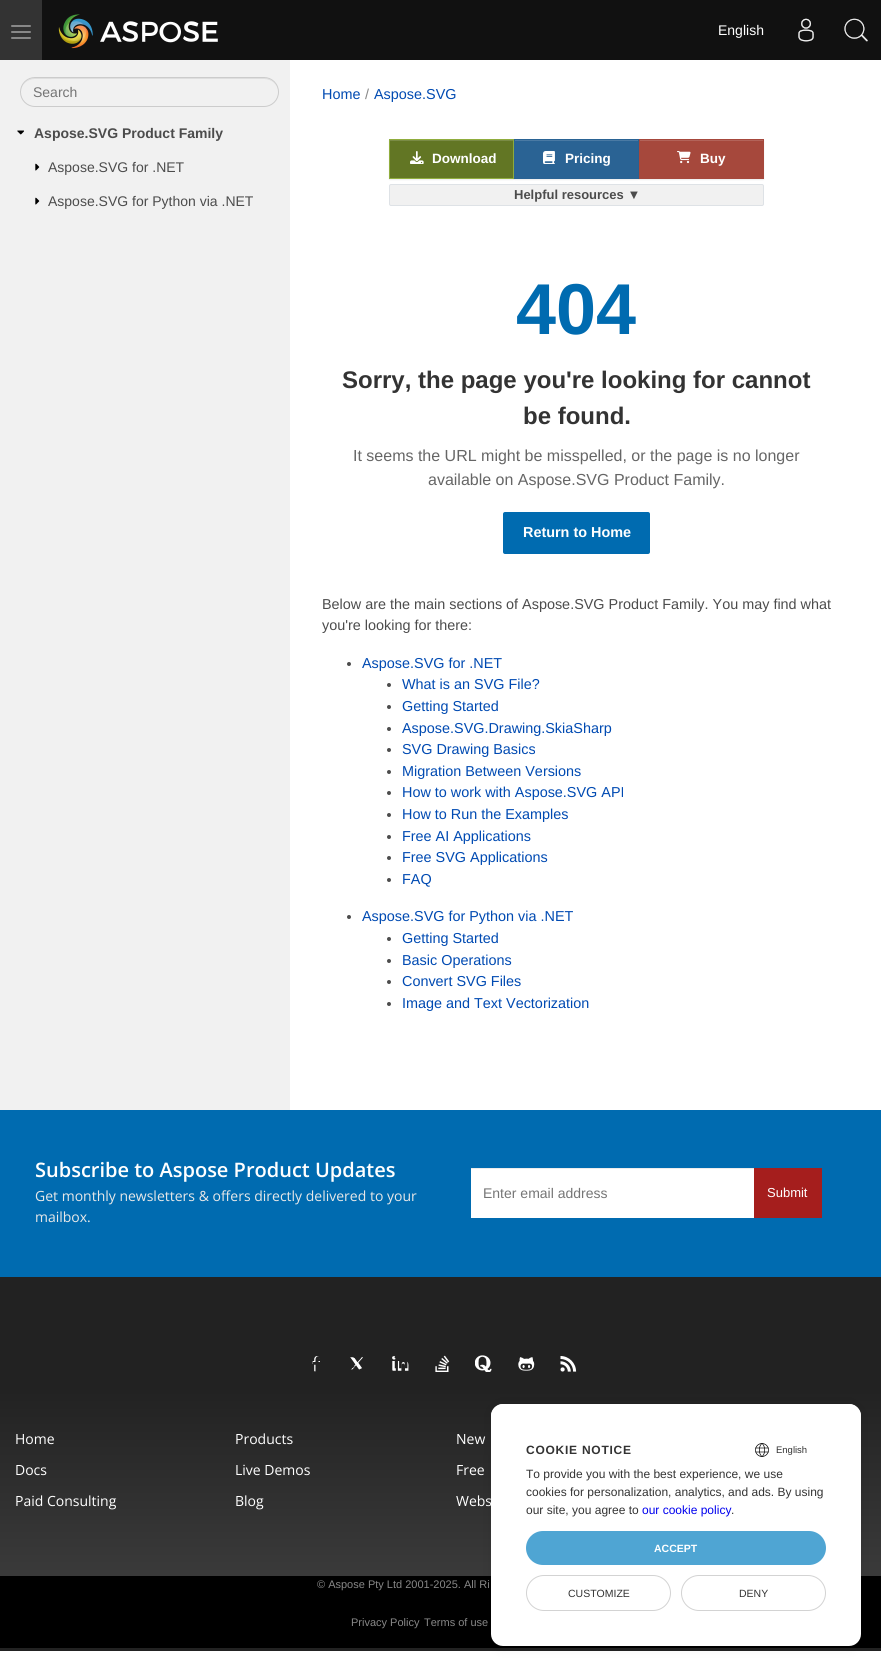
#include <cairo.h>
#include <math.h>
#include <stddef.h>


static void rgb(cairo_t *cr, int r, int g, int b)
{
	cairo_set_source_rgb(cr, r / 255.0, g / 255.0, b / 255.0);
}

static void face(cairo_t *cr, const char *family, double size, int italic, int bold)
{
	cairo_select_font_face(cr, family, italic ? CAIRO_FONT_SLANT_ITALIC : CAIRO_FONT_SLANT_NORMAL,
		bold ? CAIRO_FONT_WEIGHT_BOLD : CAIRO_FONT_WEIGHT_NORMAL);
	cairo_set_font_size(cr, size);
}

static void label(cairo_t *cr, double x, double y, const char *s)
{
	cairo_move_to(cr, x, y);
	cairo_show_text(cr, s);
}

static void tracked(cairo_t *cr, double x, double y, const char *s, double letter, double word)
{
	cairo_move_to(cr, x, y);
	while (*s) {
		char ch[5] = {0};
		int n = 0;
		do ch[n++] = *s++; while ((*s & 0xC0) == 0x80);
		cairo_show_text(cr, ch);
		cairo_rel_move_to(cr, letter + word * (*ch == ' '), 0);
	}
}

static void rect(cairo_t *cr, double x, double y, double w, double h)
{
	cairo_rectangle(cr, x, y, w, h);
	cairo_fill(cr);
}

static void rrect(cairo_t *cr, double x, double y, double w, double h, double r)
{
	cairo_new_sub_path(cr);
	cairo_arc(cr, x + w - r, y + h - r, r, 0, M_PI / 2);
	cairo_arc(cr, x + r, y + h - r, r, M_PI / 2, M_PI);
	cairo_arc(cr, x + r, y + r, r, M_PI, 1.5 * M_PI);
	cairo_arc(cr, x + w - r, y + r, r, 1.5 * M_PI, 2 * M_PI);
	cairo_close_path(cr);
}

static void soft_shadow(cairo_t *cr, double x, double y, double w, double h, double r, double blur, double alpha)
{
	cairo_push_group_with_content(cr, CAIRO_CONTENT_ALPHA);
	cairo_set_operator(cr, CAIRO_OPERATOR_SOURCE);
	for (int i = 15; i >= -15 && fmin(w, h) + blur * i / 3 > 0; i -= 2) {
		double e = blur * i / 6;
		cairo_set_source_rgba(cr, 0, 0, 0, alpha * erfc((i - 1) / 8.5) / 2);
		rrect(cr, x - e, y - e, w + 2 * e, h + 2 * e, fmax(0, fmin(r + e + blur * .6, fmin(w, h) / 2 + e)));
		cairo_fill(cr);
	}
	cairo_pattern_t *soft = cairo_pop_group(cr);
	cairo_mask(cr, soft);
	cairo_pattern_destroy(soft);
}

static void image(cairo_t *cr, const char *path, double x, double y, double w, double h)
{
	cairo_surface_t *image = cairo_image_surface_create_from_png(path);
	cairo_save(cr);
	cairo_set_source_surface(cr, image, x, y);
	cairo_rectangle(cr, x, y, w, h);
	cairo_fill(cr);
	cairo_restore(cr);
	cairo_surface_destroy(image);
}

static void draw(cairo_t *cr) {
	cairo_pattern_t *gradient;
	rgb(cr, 255, 255, 255);
	cairo_paint(cr);
	rgb(cr, 17, 17, 17);
	rect(cr, 42, 0, 839, 60);
	rgb(cr, 51, 51, 51);
	rect(cr, 0, 0, 42, 60);
	rgb(cr, 136, 136, 136);
	rrect(cr, 11, 25, 20, 2, 1);
	cairo_fill(cr);
	rrect(cr, 11, 31, 20, 2, 1);
	cairo_fill(cr);
	rrect(cr, 11, 37, 20, 2, 1);
	cairo_fill(cr);
	image(cr, "image0.png", 58, 14, 160, 35);
	face(cr, "Liberation Sans", 14, 0, 0);
	rgb(cr, 255, 255, 255);
	label(cr, 718, 35, "English");
	image(cr, "image1.png", 798, 18, 16, 24);
	image(cr, "image2.png", 844, 18, 24, 24);
	rgb(cr, 241, 241, 241);
	rect(cr, 0, 60, 290, 1050);
	rgb(cr, 223, 223, 223);
	cairo_new_path(cr);
	cairo_move_to(cr, 35, 79);
	cairo_line_to(cr, 264, 79);
	cairo_curve_to(cr, 272, 79, 278, 85, 278, 92);
	cairo_curve_to(cr, 278, 85, 272, 78, 264, 78);
	cairo_line_to(cr, 35, 78);
	cairo_curve_to(cr, 27, 78, 21, 85, 21, 92);
	cairo_curve_to(cr, 21, 85, 27, 79, 35, 79);
	cairo_close_path(cr);
	cairo_fill(cr);
	rrect(cr, 20.5, 77.5, 258, 29, 14.5);
	rgb(cr, 204, 204, 204);
	cairo_set_line_width(cr, 1);
	cairo_stroke(cr);
	rgb(cr, 117, 117, 117);
	label(cr, 33, 97, "Search");
	image(cr, "image3.png", 17, 130, 7, 5);
	face(cr, "Liberation Sans", 14, 0, 1);
	rgb(cr, 76, 76, 76);
	label(cr, 34, 138, "Aspose.SVG Product Family");
	image(cr, "image4.png", 35, 163, 5, 8);
	face(cr, "Liberation Sans", 14, 0, 0);
	label(cr, 48, 172, "Aspose.SVG for .NET");
	image(cr, "image4.png", 35, 197, 5, 8);
	label(cr, 48, 206, "Aspose.SVG for Python via .NET");
	face(cr, "Liberation Sans", 14.4, 0, 0);
	rgb(cr, 0, 74, 178);
	label(cr, 322, 99, "Home");
	rgb(cr, 136, 136, 136);
	label(cr, 365, 99, "/");
	rgb(cr, 0, 74, 178);
	label(cr, 374, 99, "Aspose.SVG");
	rgb(cr, 0, 0, 0);
	soft_shadow(cr, 389, 140, 125, 40, 0, 0.5, 0.07);
	rgb(cr, 98, 118, 36);
	rect(cr, 390, 141, 123, 37);
	rgb(cr, 122, 139, 69);
	rect(cr, 390, 140, 123, 1);
	cairo_rectangle(cr, 389.5, 139.5, 124, 39);
	rgb(cr, 144, 173, 62);
	cairo_stroke(cr);
	image(cr, "image5.png", 410, 151, 14, 13);
	face(cr, "Liberation Sans", 13.5, 0, 1);
	rgb(cr, 255, 255, 255);
	label(cr, 432, 163, "Download");
	rgb(cr, 0, 0, 0);
	soft_shadow(cr, 514, 140, 125, 40, 0, 0.5, 0.07);
	rgb(cr, 42, 99, 148);
	rect(cr, 514, 139, 125, 40);
	rgb(cr, 74, 122, 164);
	rect(cr, 515, 140, 123, 1);
	image(cr, "image6.png", 543, 151, 12, 13);
	rgb(cr, 255, 255, 255);
	label(cr, 565, 163, "Pricing");
	rgb(cr, 0, 0, 0);
	soft_shadow(cr, 639, 140, 125, 40, 0, 0.5, 0.07);
	rgb(cr, 166, 72, 60);
	rect(cr, 639, 139, 125, 40);
	rgb(cr, 179, 99, 89);
	rect(cr, 640, 140, 123, 1);
	image(cr, "image7.png", 677, 151, 14, 13);
	rgb(cr, 255, 255, 255);
	label(cr, 700, 163, "Buy");
	rgb(cr, 241, 241, 241);
	rrect(cr, 389.5, 184.5, 374, 21, 1.5);
	cairo_fill_preserve(cr);
	rgb(cr, 222, 226, 230);
	cairo_stroke(cr);
	face(cr, "Liberation Sans", 13, 0, 1);
	rgb(cr, 76, 76, 76);
	label(cr, 514, 199, "Helpful resources ▼");
	face(cr, "Liberation Sans", 72, 0, 1);
	rgb(cr, 0, 107, 176);
	label(cr, 516, 334, "404");
	face(cr, "Liberation Sans", 24, 0, 1);
	rgb(cr, 51, 51, 51);
	label(cr, 342, 388, "Sorry, the page you're looking for cannot");
	label(cr, 523, 424, "be found.");
	face(cr, "Liberation Sans", 16, 0, 0);
	rgb(cr, 102, 102, 102);
	label(cr, 353, 461, "It seems the URL might be misspelled, or the page is no longer");
	label(cr, 428, 485, "available on Aspose.SVG Product Family.");
	rgb(cr, 0, 107, 176);
	rrect(cr, 503, 512, 147, 42, 2);
	cairo_fill(cr);
	face(cr, "Liberation Sans", 14.4, 0, 1);
	rgb(cr, 255, 255, 255);
	label(cr, 523, 537, "Return to Home");
	face(cr, "Liberation Sans", 14.4, 0, 0);
	rgb(cr, 76, 76, 76);
	label(cr, 322, 609, "Below are the main sections of Aspose.SVG Product Family. You may find what");
	label(cr, 322, 630, "you're looking for there:");
	cairo_new_path(cr);
	cairo_arc(cr, 349, 664, 2, 0, 2 * M_PI);
	cairo_fill(cr);
	rgb(cr, 0, 74, 178);
	label(cr, 362, 668, "Aspose.SVG for .NET");
	rgb(cr, 76, 76, 76);
	cairo_new_path(cr);
	cairo_arc(cr, 389, 685, 2, 0, 2 * M_PI);
	cairo_fill(cr);
	rgb(cr, 0, 74, 178);
	label(cr, 402, 689, "What is an SVG File?");
	rgb(cr, 76, 76, 76);
	cairo_new_path(cr);
	cairo_arc(cr, 389, 707, 2, 0, 2 * M_PI);
	cairo_fill(cr);
	rgb(cr, 0, 74, 178);
	label(cr, 402, 711, "Getting Started");
	rgb(cr, 76, 76, 76);
	cairo_new_path(cr);
	cairo_arc(cr, 389, 729, 2, 0, 2 * M_PI);
	cairo_fill(cr);
	rgb(cr, 0, 74, 178);
	label(cr, 402, 733, "Aspose.SVG.Drawing.SkiaSharp");
	rgb(cr, 76, 76, 76);
	cairo_new_path(cr);
	cairo_arc(cr, 389, 750, 2, 0, 2 * M_PI);
	cairo_fill(cr);
	rgb(cr, 0, 74, 178);
	label(cr, 402, 754, "SVG Drawing Basics");
	rgb(cr, 76, 76, 76);
	cairo_new_path(cr);
	cairo_arc(cr, 389, 772, 2, 0, 2 * M_PI);
	cairo_fill(cr);
	rgb(cr, 0, 74, 178);
	label(cr, 402, 776, "Migration Between Versions");
	rgb(cr, 76, 76, 76);
	cairo_new_path(cr);
	cairo_arc(cr, 389, 793, 2, 0, 2 * M_PI);
	cairo_fill(cr);
	rgb(cr, 0, 74, 178);
	label(cr, 402, 797, "How to work with Aspose.SVG API");
	rgb(cr, 76, 76, 76);
	cairo_new_path(cr);
	cairo_arc(cr, 389, 815, 2, 0, 2 * M_PI);
	cairo_fill(cr);
	rgb(cr, 0, 74, 178);
	label(cr, 402, 819, "How to Run the Examples");
	rgb(cr, 76, 76, 76);
	cairo_new_path(cr);
	cairo_arc(cr, 389, 837, 2, 0, 2 * M_PI);
	cairo_fill(cr);
	rgb(cr, 0, 74, 178);
	label(cr, 402, 841, "Free AI Applications");
	rgb(cr, 76, 76, 76);
	cairo_new_path(cr);
	cairo_arc(cr, 389, 858, 2, 0, 2 * M_PI);
	cairo_fill(cr);
	rgb(cr, 0, 74, 178);
	label(cr, 402, 862, "Free SVG Applications");
	rgb(cr, 76, 76, 76);
	cairo_new_path(cr);
	cairo_arc(cr, 389, 880, 2, 0, 2 * M_PI);
	cairo_fill(cr);
	rgb(cr, 0, 74, 178);
	label(cr, 402, 884, "FAQ");
	rgb(cr, 76, 76, 76);
	cairo_new_path(cr);
	cairo_arc(cr, 349, 917, 2, 0, 2 * M_PI);
	cairo_fill(cr);
	rgb(cr, 0, 74, 178);
	label(cr, 362, 921, "Aspose.SVG for Python via .NET");
	rgb(cr, 76, 76, 76);
	cairo_new_path(cr);
	cairo_arc(cr, 389, 939, 2, 0, 2 * M_PI);
	cairo_fill(cr);
	rgb(cr, 0, 74, 178);
	label(cr, 402, 943, "Getting Started");
	rgb(cr, 76, 76, 76);
	cairo_new_path(cr);
	cairo_arc(cr, 389, 961, 2, 0, 2 * M_PI);
	cairo_fill(cr);
	rgb(cr, 0, 74, 178);
	label(cr, 402, 965, "Basic Operations");
	rgb(cr, 76, 76, 76);
	cairo_new_path(cr);
	cairo_arc(cr, 389, 982, 2, 0, 2 * M_PI);
	cairo_fill(cr);
	rgb(cr, 0, 74, 178);
	label(cr, 402, 986, "Convert SVG Files");
	rgb(cr, 76, 76, 76);
	cairo_new_path(cr);
	cairo_arc(cr, 389, 1004, 2, 0, 2 * M_PI);
	cairo_fill(cr);
	rgb(cr, 0, 74, 178);
	label(cr, 402, 1008, "Image and Text Vectorization");
	rgb(cr, 0, 107, 176);
	rect(cr, 0, 1110, 881, 167);
	face(cr, "Open Sans SemiBold", 20, 0, 0);
	rgb(cr, 255, 255, 255);
	label(cr, 35, 1177, "Subscribe to Aspose Product Updates");
	face(cr, "Open Sans", 14, 0, 0);
	rgb(cr, 232, 232, 232);
	label(cr, 35, 1201, "Get monthly newsletters & offers directly delivered to your");
	label(cr, 35, 1222, "mailbox.");
	rgb(cr, 255, 255, 255);
	rect(cr, 471, 1169, 283, 49);
	rgb(cr, 236, 236, 236);
	rect(cr, 471, 1168, 283, 1);
	face(cr, "Liberation Sans", 14, 0, 0);
	rgb(cr, 117, 117, 117);
	label(cr, 483, 1198, "Enter email address");
	rgb(cr, 165, 30, 29);
	rect(cr, 754, 1168, 68, 50);
	face(cr, "Liberation Sans", 13, 0, 0);
	rgb(cr, 255, 255, 255);
	label(cr, 767, 1197, "Submit");
	gradient = cairo_pattern_create_linear(441, 1277, 441, 1651);
	cairo_pattern_add_color_stop_rgba(gradient, 0.3, 0.133, 0.133, 0.133, 1);
	cairo_pattern_add_color_stop_rgba(gradient, 1, 0.267, 0.267, 0.267, 1);
	cairo_set_source(cr, gradient);
	cairo_pattern_destroy(gradient);
	rect(cr, 0, 1277, 881, 299);
	image(cr, "image8.png", 312, 1356, 8, 16);
	image(cr, "image9.png", 350, 1357, 13, 13);
	image(cr, "image10.png", 392, 1356, 17, 15);
	image(cr, "image11.png", 435, 1355, 15, 17);
	image(cr, "image12.png", 475, 1355, 17, 17);
	image(cr, "image13.png", 518, 1357, 17, 14);
	image(cr, "image14.png", 560, 1356, 17, 16);
	face(cr, "Open Sans", 14, 0, 0);
	rgb(cr, 255, 255, 255);
	label(cr, 15, 1444, "Home");
	label(cr, 235, 1444, "Products");
	label(cr, 456, 1444, "New");
	label(cr, 15, 1475, "Docs");
	label(cr, 235, 1475, "Live Demos");
	label(cr, 456, 1475, "Free");
	label(cr, 15, 1506, "Paid Consulting");
	label(cr, 235, 1506, "Blog");
	label(cr, 456, 1506, "Webs");
	rgb(cr, 0, 0, 0);
	rect(cr, 0, 1576, 881, 72);
	rgb(cr, 34, 34, 34);
	rect(cr, 0, 1648, 881, 3);
	face(cr, "Liberation Sans", 11, 0, 0);
	rgb(cr, 136, 136, 136);
	label(cr, 317, 1588, "© Aspose Pty Ltd 2001-2025. All Ri");
	label(cr, 351, 1626, "Privacy Policy");
	label(cr, 424, 1626, "Terms of use");
	rgb(cr, 0, 0, 0);
	soft_shadow(cr, 491, 1404, 370, 242, 12, 6.5, 0.1);
	rgb(cr, 255, 255, 255);
	rrect(cr, 491, 1404, 370, 242, 12);
	cairo_fill(cr);
	cairo_new_path(cr);
	cairo_move_to(cr, 503, 1404);
	cairo_line_to(cr, 849, 1404);
	cairo_curve_to(cr, 855.5, 1404, 861, 1409.5, 861, 1416);
	cairo_line_to(cr, 861, 1460);
	cairo_line_to(cr, 491, 1460);
	cairo_line_to(cr, 491, 1416);
	cairo_curve_to(cr, 491, 1409.5, 496.5, 1404, 503, 1404);
	cairo_close_path(cr);
	cairo_fill(cr);
	face(cr, "Liberation Sans", 12, 0, 1);
	rgb(cr, 51, 51, 51);
	tracked(cr, 526, 1454, "COOKIE NOTICE", 0.75, 0);
	image(cr, "image15.png", 755, 1443, 14, 14);
	face(cr, "Liberation Sans", 9.5, 0, 0);
	label(cr, 776, 1453, "English");
	face(cr, "Liberation Sans", 12, 0, 0);
	label(cr, 526, 1478, "To provide you with the best experience, we use");
	label(cr, 526, 1496, "cookies for personalization, analytics, and ads. By using");
	label(cr, 526, 1514, "our site, you agree to");
	rgb(cr, 0, 0, 238);
	label(cr, 642, 1514, "our cookie policy");
	rgb(cr, 51, 51, 51);
	label(cr, 731, 1514, ".");
	rgb(cr, 79, 165, 211);
	rrect(cr, 526, 1531, 300, 34, 17);
	cairo_fill(cr);
	face(cr, "Liberation Sans", 10.5, 0, 1);
	rgb(cr, 255, 255, 255);
	label(cr, 654, 1552, "ACCEPT");
	rrect(cr, 526.5, 1575.5, 144, 35, 17.5);
	rgb(cr, 211, 211, 211);
	cairo_stroke(cr);
	face(cr, "Liberation Sans", 10.5, 0, 0);
	rgb(cr, 51, 51, 51);
	label(cr, 568, 1597, "CUSTOMIZE");
	rrect(cr, 681.5, 1575.5, 144, 35, 17.5);
	rgb(cr, 211, 211, 211);
	cairo_stroke(cr);
	rgb(cr, 51, 51, 51);
	label(cr, 739, 1597, "DENY");
}

int main(void) {
	cairo_surface_t *surface = cairo_image_surface_create(CAIRO_FORMAT_RGB24, 881, 1666);
	cairo_t *cr = cairo_create(surface);
	cairo_font_options_t *options = cairo_font_options_create();
	cairo_font_options_set_hint_metrics(options, CAIRO_HINT_METRICS_OFF);
	cairo_font_options_set_hint_style(options, CAIRO_HINT_STYLE_NONE);
	cairo_set_font_options(cr, options);
	cairo_set_miter_limit(cr, 4);
	draw(cr);
	cairo_surface_write_to_png(surface, "render.png");
	cairo_font_options_destroy(options);
	cairo_destroy(cr);
	cairo_surface_destroy(surface);
	return 0;
}
